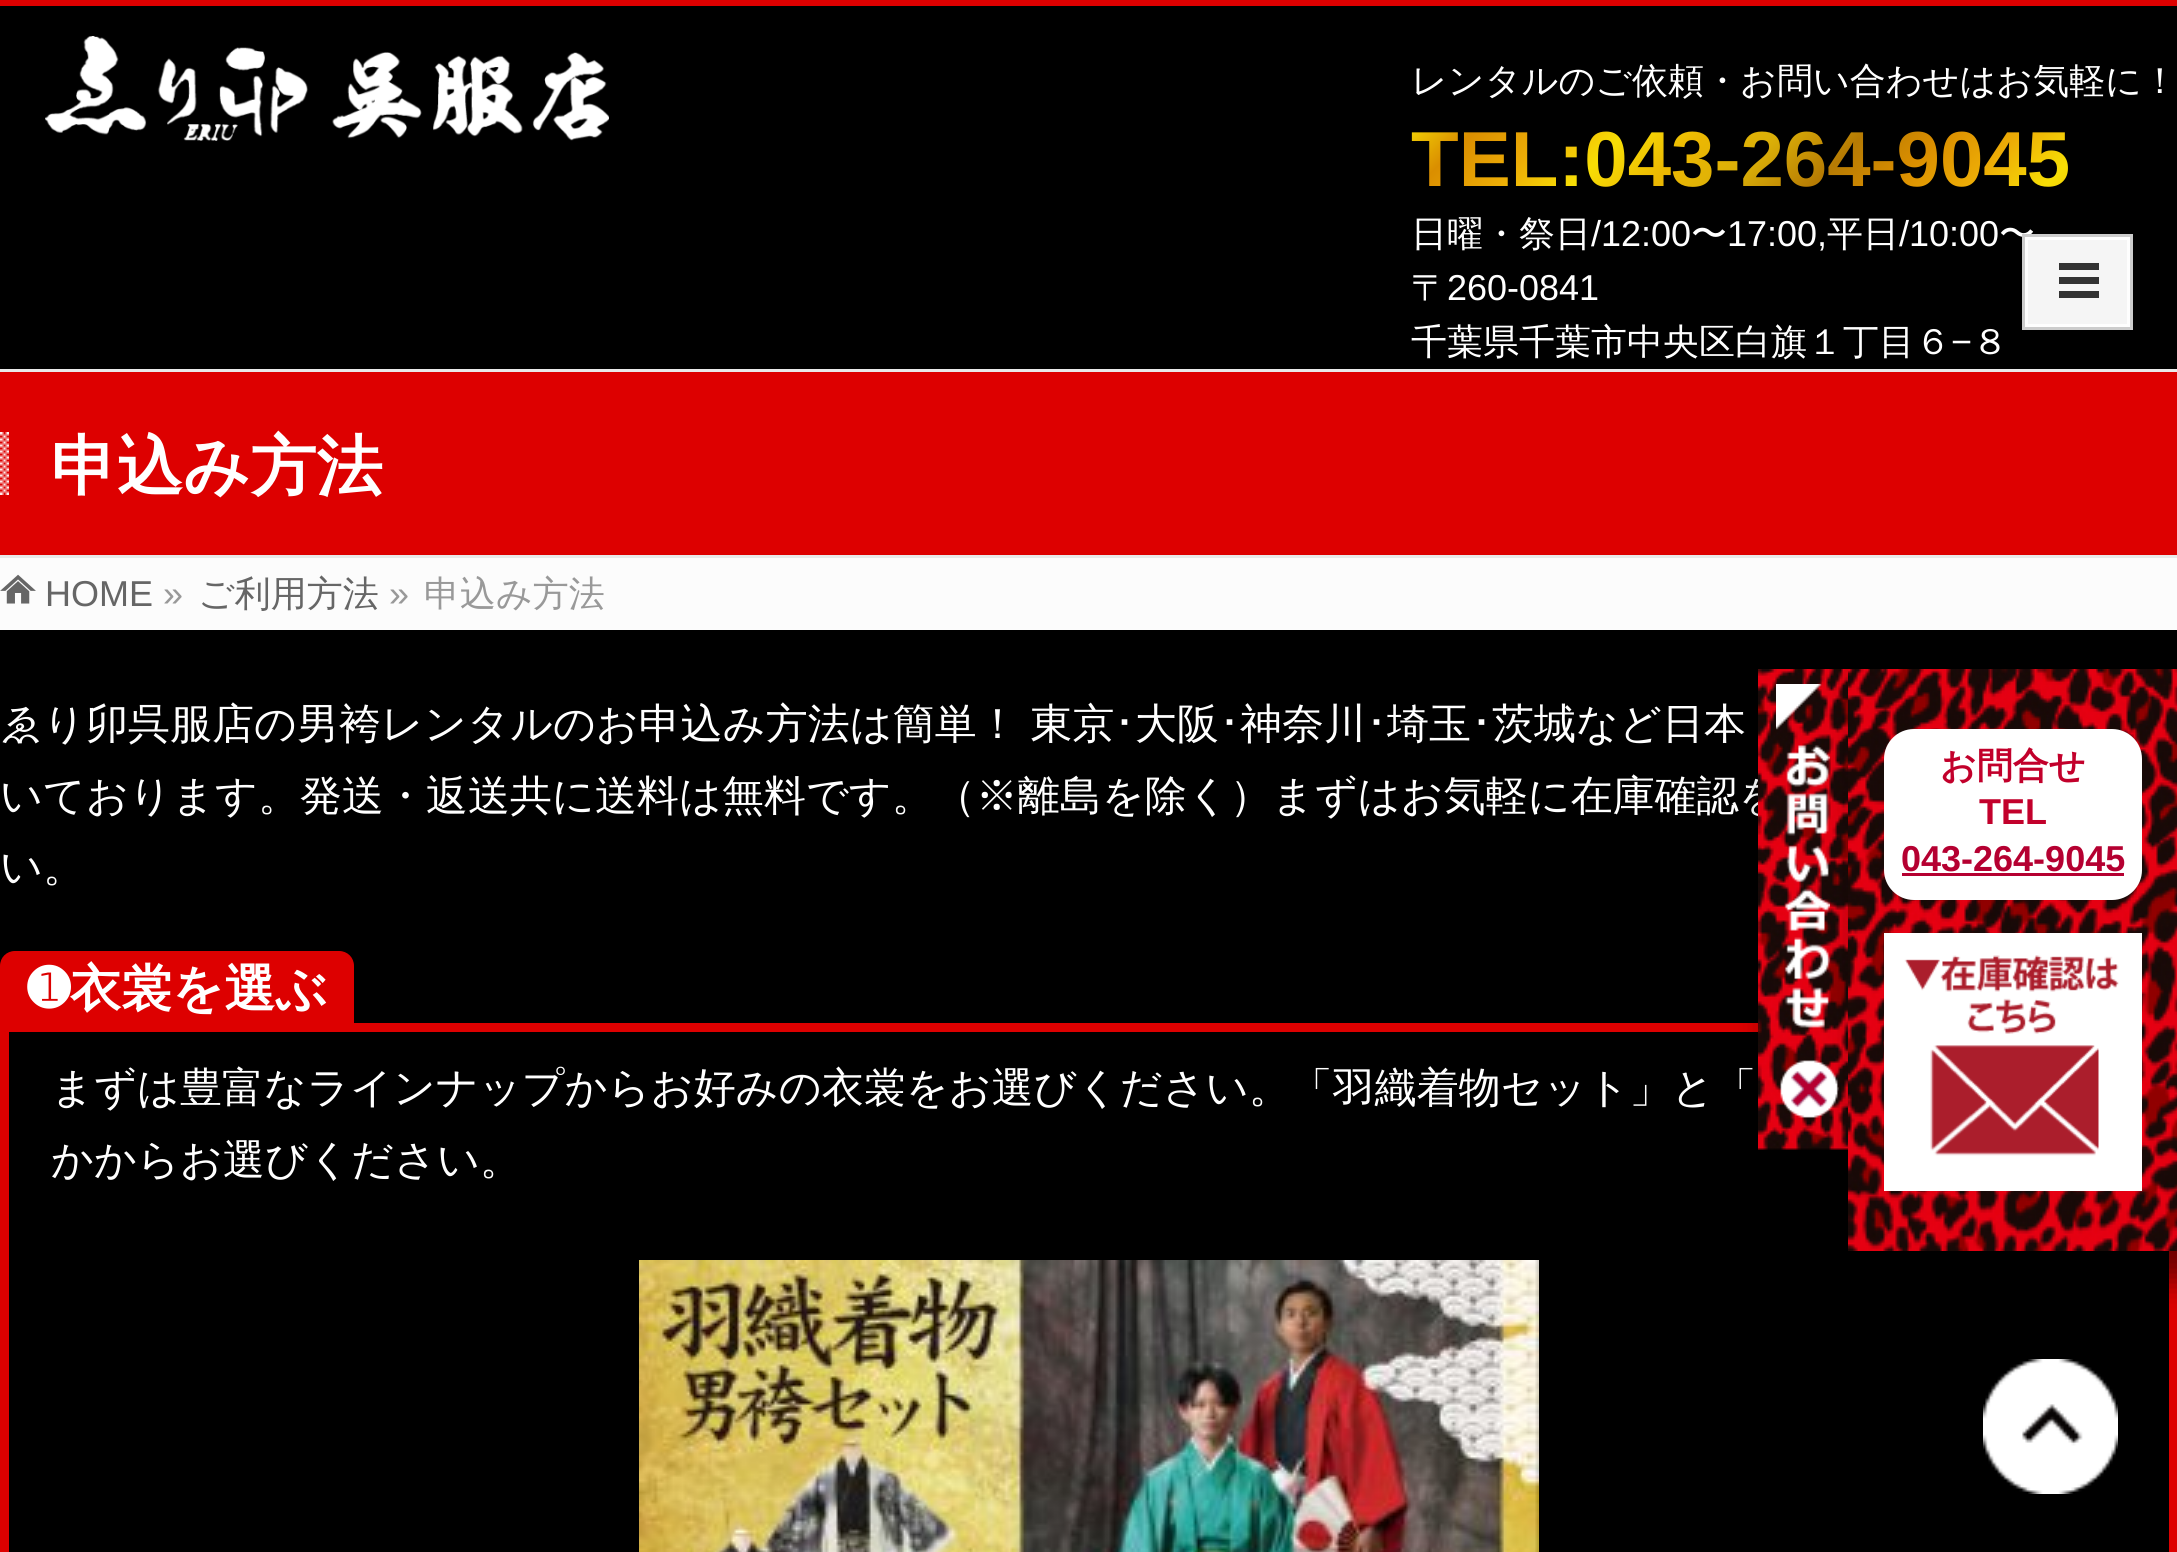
#include <cairo.h>
#include <math.h>
#include <stddef.h>


static void rgb(cairo_t *cr, int r, int g, int b)
{
	cairo_set_source_rgb(cr, r / 255.0, g / 255.0, b / 255.0);
}

static void face(cairo_t *cr, const char *family, double size, int italic, int bold)
{
	cairo_select_font_face(cr, family, italic ? CAIRO_FONT_SLANT_ITALIC : CAIRO_FONT_SLANT_NORMAL,
		bold ? CAIRO_FONT_WEIGHT_BOLD : CAIRO_FONT_WEIGHT_NORMAL);
	cairo_set_font_size(cr, size);
}

static void label(cairo_t *cr, double x, double y, const char *s)
{
	cairo_move_to(cr, x, y);
	cairo_show_text(cr, s);
}

static void tracked(cairo_t *cr, double x, double y, const char *s, double letter, double word)
{
	cairo_move_to(cr, x, y);
	while (*s) {
		char ch[5] = {0};
		int n = 0;
		do ch[n++] = *s++; while ((*s & 0xC0) == 0x80);
		cairo_show_text(cr, ch);
		cairo_rel_move_to(cr, letter + word * (*ch == ' '), 0);
	}
}

static void rect(cairo_t *cr, double x, double y, double w, double h)
{
	cairo_rectangle(cr, x, y, w, h);
	cairo_fill(cr);
}

static void rrect(cairo_t *cr, double x, double y, double w, double h, double r)
{
	cairo_new_sub_path(cr);
	cairo_arc(cr, x + w - r, y + h - r, r, 0, M_PI / 2);
	cairo_arc(cr, x + r, y + h - r, r, M_PI / 2, M_PI);
	cairo_arc(cr, x + r, y + r, r, M_PI, 1.5 * M_PI);
	cairo_arc(cr, x + w - r, y + r, r, 1.5 * M_PI, 2 * M_PI);
	cairo_close_path(cr);
}

static void soft_shadow(cairo_t *cr, double x, double y, double w, double h, double r, double blur, double alpha)
{
	cairo_push_group_with_content(cr, CAIRO_CONTENT_ALPHA);
	cairo_set_operator(cr, CAIRO_OPERATOR_SOURCE);
	for (int i = 15; i >= -15 && fmin(w, h) + blur * i / 3 > 0; i -= 2) {
		double e = blur * i / 6;
		cairo_set_source_rgba(cr, 0, 0, 0, alpha * erfc((i - 1) / 8.5) / 2);
		rrect(cr, x - e, y - e, w + 2 * e, h + 2 * e, fmax(0, fmin(r + e + blur * .6, fmin(w, h) / 2 + e)));
		cairo_fill(cr);
	}
	cairo_pattern_t *soft = cairo_pop_group(cr);
	cairo_mask(cr, soft);
	cairo_pattern_destroy(soft);
}

static void image(cairo_t *cr, const char *path, double x, double y, double w, double h)
{
	cairo_surface_t *image = cairo_image_surface_create_from_png(path);
	cairo_save(cr);
	cairo_set_source_surface(cr, image, x, y);
	cairo_rectangle(cr, x, y, w, h);
	cairo_fill(cr);
	cairo_restore(cr);
	cairo_surface_destroy(image);
}

static void draw(cairo_t *cr) {
	cairo_pattern_t *gradient;
	rgb(cr, 0, 0, 0);
	cairo_paint(cr);
	rgb(cr, 221, 0, 0);
	rect(cr, 0, 0, 2177, 6);
	image(cr, "image0.png", 45, 36, 564, 105);
	face(cr, "WenQuanYi Zen Hei Medium", 36, 0, 0);
	rgb(cr, 255, 255, 255);
	label(cr, 1411, 93, "レンタルのご依頼・お問い合わせはお気軽に！");
	face(cr, "Liberation Sans", 78, 0, 1);
	gradient = cairo_pattern_create_linear(1580, -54, 2010, 375);
	cairo_pattern_add_color_stop_rgba(gradient, 0, 0.969, 0.871, 0.02, 1);
	cairo_pattern_add_color_stop_rgba(gradient, 0.09, 0.855, 0.557, 0, 1);
	cairo_pattern_add_color_stop_rgba(gradient, 0.18, 0.929, 0.675, 0.024, 1);
	cairo_pattern_add_color_stop_rgba(gradient, 0.27, 0.969, 0.871, 0.02, 1);
	cairo_pattern_add_color_stop_rgba(gradient, 0.36, 0.925, 0.722, 0.008, 1);
	cairo_pattern_add_color_stop_rgba(gradient, 0.45, 0.855, 0.686, 0.031, 1);
	cairo_pattern_add_color_stop_rgba(gradient, 0.55, 0.714, 0.482, 0.012, 1);
	cairo_pattern_add_color_stop_rgba(gradient, 0.64, 0.855, 0.557, 0, 1);
	cairo_pattern_add_color_stop_rgba(gradient, 0.73, 0.929, 0.675, 0.024, 1);
	cairo_pattern_add_color_stop_rgba(gradient, 0.82, 0.969, 0.871, 0.02, 1);
	cairo_pattern_add_color_stop_rgba(gradient, 0.91, 0.925, 0.722, 0.008, 1);
	cairo_pattern_add_color_stop_rgba(gradient, 1, 0.929, 0.675, 0.024, 1);
	cairo_set_source(cr, gradient);
	cairo_pattern_destroy(gradient);
	label(cr, 1411, 186, "TEL:043-264-9045");
	face(cr, "WenQuanYi Zen Hei Medium", 36, 0, 0);
	rgb(cr, 255, 255, 255);
	label(cr, 1411, 246, "日曜・祭日");
	face(cr, "Liberation Sans", 36, 0, 0);
	label(cr, 1591, 246, "/12:00");
	face(cr, "WenQuanYi Zen Hei Medium", 36, 0, 0);
	label(cr, 1691, 246, "〜");
	face(cr, "Liberation Sans", 36, 0, 0);
	label(cr, 1727, 246, "17:00,");
	face(cr, "WenQuanYi Zen Hei Medium", 36, 0, 0);
	label(cr, 1827, 246, "平日");
	face(cr, "Liberation Sans", 36, 0, 0);
	label(cr, 1899, 246, "/10:00");
	face(cr, "WenQuanYi Zen Hei Medium", 36, 0, 0);
	label(cr, 1999, 246, "〜");
	label(cr, 1411, 300, "〒");
	face(cr, "Liberation Sans", 36, 0, 0);
	label(cr, 1447, 300, "260-0841");
	face(cr, "WenQuanYi Zen Hei Medium", 36, 0, 0);
	label(cr, 1411, 354, "千葉県千葉市中央区白旗１丁目６");
	face(cr, "Liberation Sans", 36, 0, 0);
	label(cr, 1951, 354, "−");
	face(cr, "WenQuanYi Zen Hei Medium", 36, 0, 0);
	label(cr, 1972, 354, "８");
	rgb(cr, 245, 245, 245);
	cairo_rectangle(cr, 2026.5, 238.5, 102, 87);
	cairo_fill_preserve(cr);
	rgb(cr, 254, 254, 254);
	cairo_set_line_width(cr, 3);
	cairo_stroke(cr);
	cairo_rectangle(cr, 2023.5, 235.5, 108, 93);
	rgb(cr, 204, 204, 204);
	cairo_stroke(cr);
	rgb(cr, 51, 51, 51);
	cairo_new_path(cr);
	cairo_move_to(cr, 2059, 263);
	cairo_line_to(cr, 2059, 270);
	cairo_line_to(cr, 2099, 270);
	cairo_line_to(cr, 2099, 263);
	cairo_close_path(cr);
	cairo_move_to(cr, 2059, 277);
	cairo_line_to(cr, 2059, 284);
	cairo_line_to(cr, 2099, 284);
	cairo_line_to(cr, 2099, 277);
	cairo_close_path(cr);
	cairo_move_to(cr, 2059, 291);
	cairo_line_to(cr, 2059, 298);
	cairo_line_to(cr, 2099, 298);
	cairo_line_to(cr, 2099, 291);
	cairo_close_path(cr);
	cairo_fill(cr);
	rgb(cr, 221, 0, 0);
	rect(cr, 0, 372, 2177, 183);
	rgb(cr, 233, 233, 233);
	rect(cr, 0, 369, 2177, 3);
	rect(cr, 0, 555, 2177, 3);
	image(cr, "image1.png", 0, 432, 9, 63);
	face(cr, "WenQuanYi Zen Hei", 66, 0, 1);
	rgb(cr, 255, 255, 255);
	label(cr, 51, 489, "申込み方法");
	rgb(cr, 252, 252, 252);
	rect(cr, 0, 558, 2177, 72);
	image(cr, "image2.png", 0, 574, 36, 30);
	face(cr, "Liberation Sans", 36, 0, 0);
	rgb(cr, 102, 102, 102);
	label(cr, 45, 606, "HOME");
	rgb(cr, 153, 153, 153);
	label(cr, 163, 606, "»");
	face(cr, "WenQuanYi Zen Hei Medium", 36, 0, 0);
	rgb(cr, 102, 102, 102);
	label(cr, 198, 606, "ご利用方法");
	face(cr, "Liberation Sans", 36, 0, 0);
	rgb(cr, 153, 153, 153);
	label(cr, 389, 606, "»");
	face(cr, "WenQuanYi Zen Hei Medium", 36, 0, 0);
	label(cr, 424, 606, "申込み方法");
	face(cr, "WenQuanYi Zen Hei Medium", 42, 0, 0);
	rgb(cr, 255, 255, 255);
	tracked(cr, 0, 738, "ゑり卯呉服店の男袴レンタルのお申込み方法は簡単！ 東京", 0, -1);
	face(cr, "IPAPGothic", 42, 0, 0);
	label(cr, 1114, 738, "･");
	face(cr, "WenQuanYi Zen Hei Medium", 42, 0, 0);
	label(cr, 1135, 738, "大阪");
	face(cr, "IPAPGothic", 42, 0, 0);
	label(cr, 1219, 738, "･");
	face(cr, "WenQuanYi Zen Hei Medium", 42, 0, 0);
	label(cr, 1240, 738, "神奈川");
	face(cr, "IPAPGothic", 42, 0, 0);
	label(cr, 1366, 738, "･");
	face(cr, "WenQuanYi Zen Hei Medium", 42, 0, 0);
	label(cr, 1387, 738, "埼玉");
	face(cr, "IPAPGothic", 42, 0, 0);
	label(cr, 1471, 738, "･");
	face(cr, "WenQuanYi Zen Hei Medium", 42, 0, 0);
	label(cr, 1492, 738, "茨城など日本");
	label(cr, 0, 810, "いております。発送・返送共に送料は無料です。（※離島を除く）まずはお気軽に在庫確認を");
	label(cr, 0, 881, "い。");
	cairo_rectangle(cr, 4.5, 1027.5, 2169, 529);
	rgb(cr, 221, 0, 0);
	cairo_set_line_width(cr, 9);
	cairo_stroke(cr);
	cairo_new_path(cr);
	cairo_move_to(cr, 15, 951);
	cairo_line_to(cr, 339, 951);
	cairo_curve_to(cr, 347.5, 951, 354, 957.5, 354, 966);
	cairo_line_to(cr, 354, 1026);
	cairo_line_to(cr, 0, 1026);
	cairo_line_to(cr, 0, 966);
	cairo_curve_to(cr, 0, 957.5, 6.5, 951, 15, 951);
	cairo_close_path(cr);
	cairo_fill(cr);
	face(cr, "DejaVu Sans", 51, 0, 1);
	rgb(cr, 255, 255, 255);
	label(cr, 27, 1006, "➊");
	face(cr, "WenQuanYi Zen Hei", 51, 0, 1);
	label(cr, 70, 1006, "衣裳を選ぶ");
	face(cr, "WenQuanYi Zen Hei Medium", 42, 0, 0);
	label(cr, 51, 1102, "まずは豊富なラインナップからお好みの衣裳をお選びください。「羽織着物セット」と「");
	label(cr, 51, 1174, "かからお選びください。");
	image(cr, "image3.png", 639, 1260, 900, 292);
	image(cr, "image4.png", 1983, 1359, 135, 135);
	rgb(cr, 0, 0, 0);
	soft_shadow(cr, 1770, 681, 108, 498, 0, 15, 0.5);
	image(cr, "image5.png", 1758, 669, 90, 481);
	image(cr, "image6.png", 1776, 684, 54, 344);
	soft_shadow(cr, 1860, 681, 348, 600, 0, 15, 0.5);
	image(cr, "image7.png", 1848, 669, 329, 582);
	rgb(cr, 255, 255, 255);
	rrect(cr, 1884, 729, 258, 171, 30);
	cairo_fill(cr);
	face(cr, "WenQuanYi Zen Hei", 36, 0, 1);
	rgb(cr, 194, 0, 43);
	label(cr, 1940, 778, "お問合せ");
	face(cr, "Liberation Sans", 36, 0, 1);
	label(cr, 1979, 824, "TEL");
	rgb(cr, 181, 0, 49);
	label(cr, 1901, 871, "043-264-9045");
	rect(cr, 1902, 873, 222, 3);
	image(cr, "image8.png", 1884, 933, 258, 258);
	image(cr, "image9.png", 1780, 1060, 59, 58);
}

int main(void) {
	cairo_surface_t *surface = cairo_image_surface_create(CAIRO_FORMAT_RGB24, 2177, 1552);
	cairo_t *cr = cairo_create(surface);
	cairo_font_options_t *options = cairo_font_options_create();
	cairo_font_options_set_hint_metrics(options, CAIRO_HINT_METRICS_OFF);
	cairo_font_options_set_hint_style(options, CAIRO_HINT_STYLE_NONE);
	cairo_set_font_options(cr, options);
	cairo_set_miter_limit(cr, 4);
	draw(cr);
	cairo_surface_write_to_png(surface, "render.png");
	cairo_font_options_destroy(options);
	cairo_destroy(cr);
	cairo_surface_destroy(surface);
	return 0;
}
